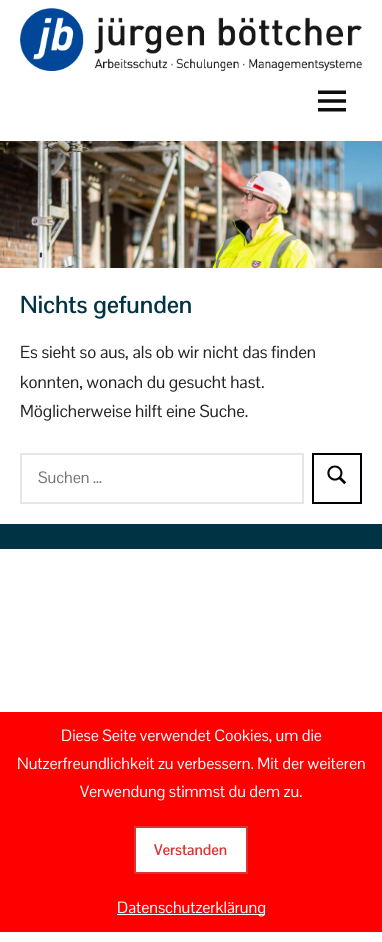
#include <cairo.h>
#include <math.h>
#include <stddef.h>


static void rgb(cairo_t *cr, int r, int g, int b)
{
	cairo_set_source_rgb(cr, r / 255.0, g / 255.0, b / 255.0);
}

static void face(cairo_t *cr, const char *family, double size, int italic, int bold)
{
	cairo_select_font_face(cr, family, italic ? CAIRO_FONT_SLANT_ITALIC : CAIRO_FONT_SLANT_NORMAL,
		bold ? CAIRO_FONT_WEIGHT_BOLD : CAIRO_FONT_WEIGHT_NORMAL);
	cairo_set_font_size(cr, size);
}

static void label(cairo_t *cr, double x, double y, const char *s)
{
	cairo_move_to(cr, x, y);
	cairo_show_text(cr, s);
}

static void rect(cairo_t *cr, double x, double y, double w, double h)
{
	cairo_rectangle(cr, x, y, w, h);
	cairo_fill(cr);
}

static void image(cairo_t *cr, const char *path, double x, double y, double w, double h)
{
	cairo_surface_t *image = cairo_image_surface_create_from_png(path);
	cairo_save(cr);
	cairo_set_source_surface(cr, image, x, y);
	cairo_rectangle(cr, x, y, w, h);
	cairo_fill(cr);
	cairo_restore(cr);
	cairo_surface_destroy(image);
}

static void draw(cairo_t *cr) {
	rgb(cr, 255, 255, 255);
	cairo_paint(cr);
	image(cr, "image0.png", 20, 8, 342, 63);
	image(cr, "image1.png", 318, 90, 28, 22);
	image(cr, "image2.png", 0, 141, 382, 127);
	face(cr, "Pontano Sans", 24, 0, 1);
	rgb(cr, 0, 51, 68);
	label(cr, 20, 313, "Nichts gefunden");
	face(cr, "Pontano Sans", 17, 0, 0);
	rgb(cr, 36, 36, 36);
	label(cr, 20, 358, "Es sieht so aus, als ob wir nicht das finden");
	label(cr, 20, 388, "konnten, wonach du gesucht hast.");
	label(cr, 20, 417, "Möglicherweise hilft eine Suche.");
	cairo_rectangle(cr, 21, 454, 282, 49);
	rgb(cr, 230, 230, 230);
	cairo_stroke(cr);
	face(cr, "Pontano Sans", 16, 0, 0);
	rgb(cr, 117, 117, 117);
	label(cr, 38, 483, "Suchen …");
	cairo_rectangle(cr, 313, 454, 48, 49);
	rgb(cr, 0, 0, 0);
	cairo_stroke(cr);
	image(cr, "image3.png", 327, 465, 20, 20);
	rgb(cr, 0, 51, 68);
	rect(cr, 0, 524, 382, 25);
	rgb(cr, 255, 0, 0);
	rect(cr, 0, 712, 382, 220);
	rgb(cr, 255, 255, 255);
	label(cr, 61, 741, "Diese Seite verwendet Cookies, um die");
	label(cr, 17, 769, "Nutzerfreundlichkeit zu verbessern. Mit der weiteren");
	label(cr, 80, 797, "Verwendung stimmst du dem zu.");
	cairo_rectangle(cr, 135, 827, 112, 46);
	cairo_fill_preserve(cr);
	rgb(cr, 221, 51, 51);
	cairo_stroke(cr);
	face(cr, "Pontano Sans", 15, 0, 1);
	label(cr, 154, 855, "Verstanden");
	rgb(cr, 255, 255, 255);
	rect(cr, 117, 914, 148, 1);
	face(cr, "Pontano Sans", 16, 0, 0);
	label(cr, 117, 913, "Datenschutzerklärung");
}

int main(void) {
	cairo_surface_t *surface = cairo_image_surface_create(CAIRO_FORMAT_RGB24, 382, 942);
	cairo_t *cr = cairo_create(surface);
	cairo_font_options_t *options = cairo_font_options_create();
	cairo_font_options_set_hint_metrics(options, CAIRO_HINT_METRICS_OFF);
	cairo_font_options_set_hint_style(options, CAIRO_HINT_STYLE_NONE);
	cairo_set_font_options(cr, options);
	cairo_set_miter_limit(cr, 4);
	draw(cr);
	cairo_surface_write_to_png(surface, "render.png");
	cairo_font_options_destroy(options);
	cairo_destroy(cr);
	cairo_surface_destroy(surface);
	return 0;
}
